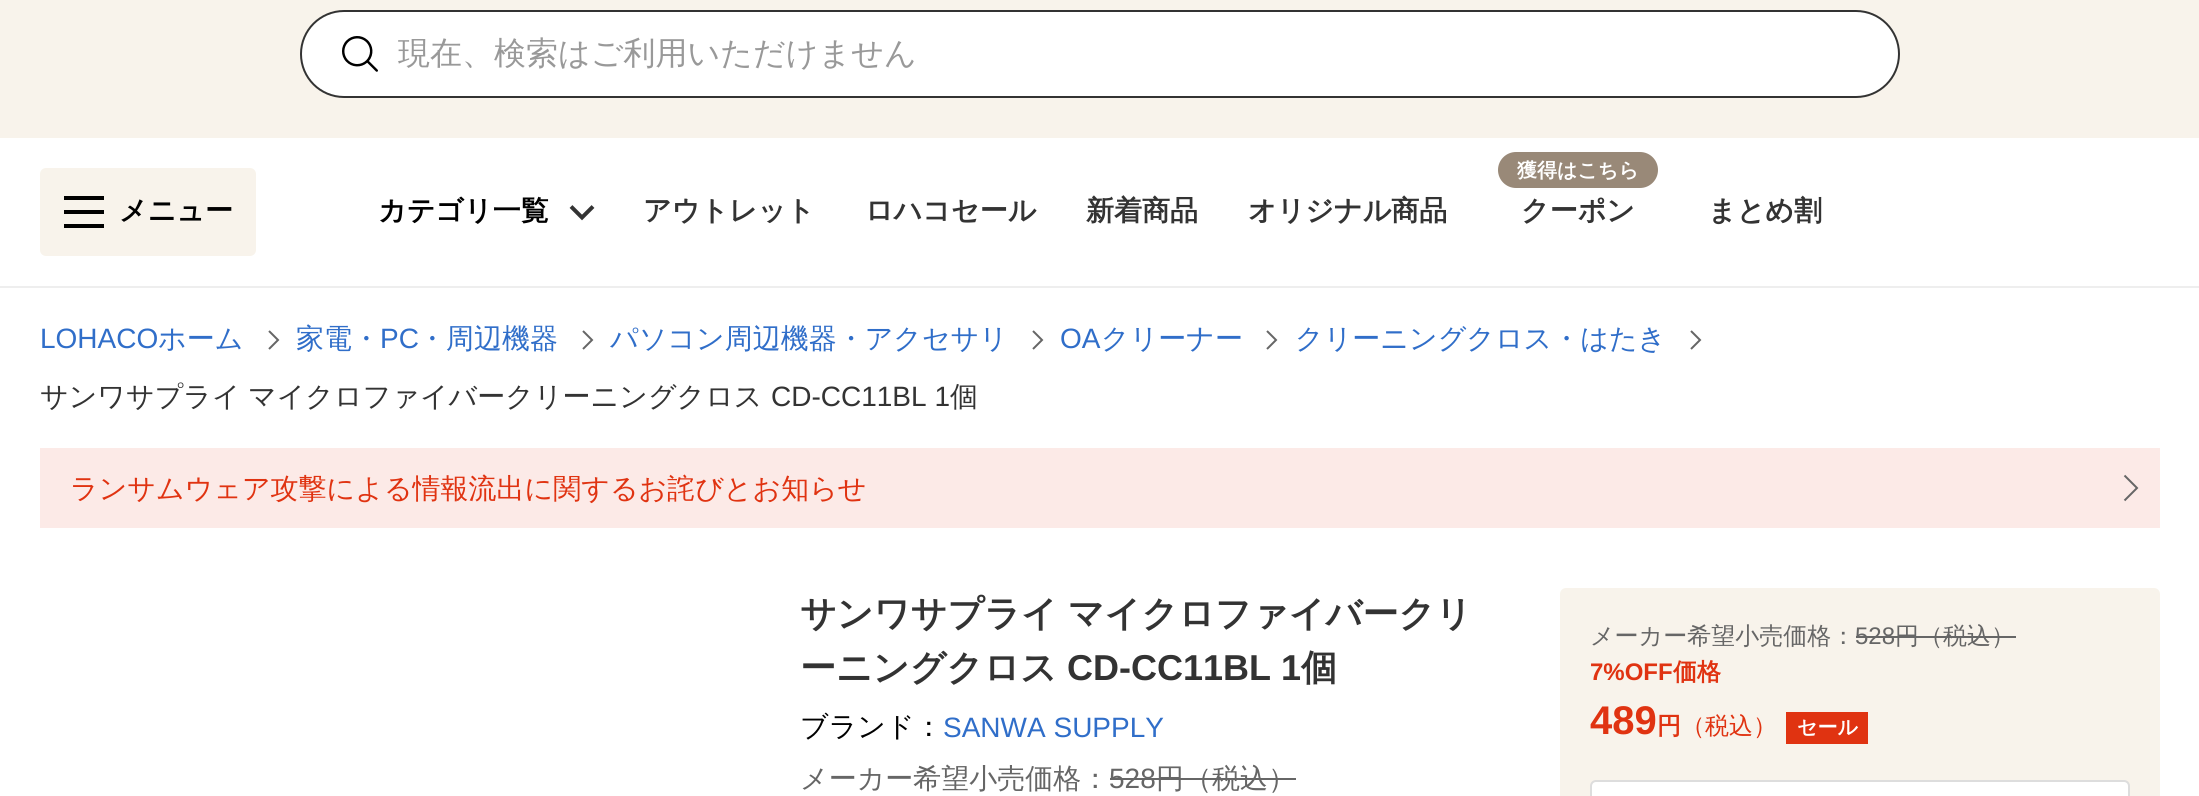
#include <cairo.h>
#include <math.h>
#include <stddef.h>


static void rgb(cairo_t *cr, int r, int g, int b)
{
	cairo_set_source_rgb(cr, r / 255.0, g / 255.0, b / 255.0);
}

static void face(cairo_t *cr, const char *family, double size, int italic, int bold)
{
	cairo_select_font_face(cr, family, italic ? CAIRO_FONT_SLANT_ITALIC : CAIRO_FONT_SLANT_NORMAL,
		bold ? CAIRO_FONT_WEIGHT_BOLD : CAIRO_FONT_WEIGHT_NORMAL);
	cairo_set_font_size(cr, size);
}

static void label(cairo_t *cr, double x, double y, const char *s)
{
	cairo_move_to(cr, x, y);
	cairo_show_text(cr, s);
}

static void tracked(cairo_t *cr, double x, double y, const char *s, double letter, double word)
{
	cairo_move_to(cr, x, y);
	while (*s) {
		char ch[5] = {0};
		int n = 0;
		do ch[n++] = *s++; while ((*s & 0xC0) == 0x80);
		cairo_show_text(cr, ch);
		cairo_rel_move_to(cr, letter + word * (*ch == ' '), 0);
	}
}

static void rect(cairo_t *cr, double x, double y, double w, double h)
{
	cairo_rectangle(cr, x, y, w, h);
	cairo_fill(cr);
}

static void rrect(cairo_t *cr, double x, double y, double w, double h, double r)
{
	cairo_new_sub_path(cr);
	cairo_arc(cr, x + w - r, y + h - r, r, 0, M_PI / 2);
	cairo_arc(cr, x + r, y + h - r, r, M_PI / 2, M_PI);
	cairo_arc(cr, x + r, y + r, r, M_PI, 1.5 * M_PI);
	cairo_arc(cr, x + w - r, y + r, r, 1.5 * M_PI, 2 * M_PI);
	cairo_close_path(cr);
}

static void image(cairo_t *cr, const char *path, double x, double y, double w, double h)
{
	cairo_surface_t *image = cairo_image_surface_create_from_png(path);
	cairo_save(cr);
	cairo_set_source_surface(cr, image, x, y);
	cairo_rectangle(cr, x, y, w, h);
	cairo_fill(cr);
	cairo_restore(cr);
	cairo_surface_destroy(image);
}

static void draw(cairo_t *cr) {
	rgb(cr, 255, 255, 255);
	cairo_paint(cr);
	rgb(cr, 248, 243, 235);
	rect(cr, 0, 0, 2199, 138);
	rgb(cr, 255, 255, 255);
	rrect(cr, 301, 11, 1598, 86, 43);
	cairo_fill_preserve(cr);
	rgb(cr, 51, 51, 51);
	cairo_stroke(cr);
	image(cr, "image0.png", 342, 36, 36, 36);
	face(cr, "WenQuanYi Zen Hei Medium", 32, 0, 0);
	rgb(cr, 153, 153, 153);
	label(cr, 398, 64, "現在、検索はご利用いただけません");
	rgb(cr, 248, 243, 235);
	rrect(cr, 40, 168, 216, 88, 6);
	cairo_fill(cr);
	rgb(cr, 0, 0, 0);
	cairo_new_path(cr);
	cairo_move_to(cr, 104, 224);
	cairo_line_to(cr, 104, 228);
	cairo_line_to(cr, 64, 228);
	cairo_line_to(cr, 64, 224);
	cairo_close_path(cr);
	cairo_move_to(cr, 104, 210);
	cairo_line_to(cr, 104, 214);
	cairo_line_to(cr, 64, 214);
	cairo_line_to(cr, 64, 210);
	cairo_close_path(cr);
	cairo_move_to(cr, 104, 196);
	cairo_line_to(cr, 104, 200);
	cairo_line_to(cr, 64, 200);
	cairo_line_to(cr, 64, 196);
	cairo_close_path(cr);
	cairo_fill(cr);
	face(cr, "WenQuanYi Zen Hei", 28, 0, 1);
	label(cr, 119, 220, "メニュー");
	label(cr, 378, 220, "カテゴリ一覧");
	cairo_new_path(cr);
	cairo_move_to(cr, 593, 206.5);
	cairo_line_to(cr, 582, 217.5);
	cairo_line_to(cr, 571, 206.5);
	rgb(cr, 51, 51, 51);
	cairo_set_line_width(cr, 4);
	cairo_stroke(cr);
	label(cr, 643, 220, "アウトレット");
	label(cr, 865, 220, "ロハコセール");
	label(cr, 1086, 220, "新着商品");
	label(cr, 1248, 220, "オリジナル商品");
	rgb(cr, 153, 137, 120);
	rrect(cr, 1498, 152, 160, 36, 18);
	cairo_fill(cr);
	face(cr, "WenQuanYi Zen Hei", 20, 0, 1);
	rgb(cr, 255, 255, 255);
	label(cr, 1517, 177, "獲得はこちら");
	face(cr, "WenQuanYi Zen Hei", 28, 0, 1);
	rgb(cr, 51, 51, 51);
	label(cr, 1521, 220, "クーポン");
	label(cr, 1708, 220, "まとめ割");
	rgb(cr, 238, 238, 238);
	rect(cr, 0, 286, 2199, 2);
	face(cr, "Liberation Sans", 28, 0, 0);
	rgb(cr, 48, 110, 201);
	label(cr, 40, 348, "LOHACO");
	face(cr, "WenQuanYi Zen Hei Medium", 28, 0, 0);
	label(cr, 158, 348, "ホーム");
	cairo_new_path(cr);
	cairo_move_to(cr, 269, 331);
	cairo_line_to(cr, 278, 340);
	cairo_line_to(cr, 269, 349);
	rgb(cr, 102, 102, 102);
	cairo_set_line_width(cr, 2);
	cairo_stroke(cr);
	rgb(cr, 48, 110, 201);
	label(cr, 296, 348, "家電・");
	face(cr, "Liberation Sans", 28, 0, 0);
	label(cr, 380, 348, "PC");
	face(cr, "WenQuanYi Zen Hei Medium", 28, 0, 0);
	label(cr, 418, 348, "・周辺機器");
	cairo_new_path(cr);
	cairo_move_to(cr, 583, 331);
	cairo_line_to(cr, 592, 340);
	cairo_line_to(cr, 583, 349);
	rgb(cr, 102, 102, 102);
	cairo_stroke(cr);
	rgb(cr, 48, 110, 201);
	label(cr, 610, 348, "パソコン周辺機器・アクセサリ");
	cairo_new_path(cr);
	cairo_move_to(cr, 1033, 331);
	cairo_line_to(cr, 1042, 340);
	cairo_line_to(cr, 1033, 349);
	rgb(cr, 102, 102, 102);
	cairo_stroke(cr);
	face(cr, "Liberation Sans", 28, 0, 0);
	rgb(cr, 48, 110, 201);
	label(cr, 1060, 348, "OA");
	face(cr, "WenQuanYi Zen Hei Medium", 28, 0, 0);
	label(cr, 1101, 348, "クリーナー");
	cairo_new_path(cr);
	cairo_move_to(cr, 1267, 331);
	cairo_line_to(cr, 1276, 340);
	cairo_line_to(cr, 1267, 349);
	rgb(cr, 102, 102, 102);
	cairo_stroke(cr);
	rgb(cr, 48, 110, 201);
	label(cr, 1295, 348, "クリーニングクロス・はたき");
	cairo_new_path(cr);
	cairo_move_to(cr, 1691, 331);
	cairo_line_to(cr, 1700, 340);
	cairo_line_to(cr, 1691, 349);
	rgb(cr, 102, 102, 102);
	cairo_stroke(cr);
	rgb(cr, 51, 51, 51);
	label(cr, 40, 406, "サンワサプライ");
	label(cr, 248, 406, "マイクロファイバークリーニングクロス");
	face(cr, "Liberation Sans", 28, 0, 0);
	label(cr, 771, 406, "CD-CC11BL 1");
	face(cr, "WenQuanYi Zen Hei Medium", 28, 0, 0);
	label(cr, 950, 406, "個");
	rgb(cr, 252, 234, 231);
	rect(cr, 40, 448, 2120, 80);
	rgb(cr, 224, 51, 17);
	label(cr, 70, 498, "ランサムウェア攻撃による情報流出に関するお詫びとお知らせ");
	cairo_new_path(cr);
	cairo_move_to(cr, 2124.5, 475.5);
	cairo_line_to(cr, 2137, 488);
	cairo_line_to(cr, 2124.5, 500.5);
	rgb(cr, 102, 102, 102);
	cairo_stroke(cr);
	face(cr, "WenQuanYi Zen Hei", 36, 0, 1);
	rgb(cr, 51, 51, 51);
	tracked(cr, 800, 626, "サンワサプライ マイクロファイバークリ", 0, -1);
	label(cr, 800, 680, "ーニングクロス");
	face(cr, "Liberation Sans", 36, 0, 1);
	label(cr, 1067, 680, "CD-CC11BL 1");
	face(cr, "WenQuanYi Zen Hei", 36, 0, 1);
	label(cr, 1301, 680, "個");
	face(cr, "WenQuanYi Zen Hei Medium", 28, 0, 0);
	rgb(cr, 0, 0, 0);
	label(cr, 800, 736, "ブランド：");
	face(cr, "Liberation Sans", 28, 0, 0);
	rgb(cr, 48, 110, 201);
	label(cr, 943, 737, "SANWA SUPPLY");
	face(cr, "WenQuanYi Zen Hei Medium", 28, 0, 0);
	rgb(cr, 102, 102, 102);
	label(cr, 800, 788, "メーカー希望小売価格：");
	face(cr, "Liberation Sans", 28, 0, 0);
	label(cr, 1109, 788, "528");
	rect(cr, 1110, 778, 186, 2);
	face(cr, "WenQuanYi Zen Hei Medium", 28, 0, 0);
	label(cr, 1156, 788, "円（税込）");
	rgb(cr, 248, 243, 235);
	rrect(cr, 1560, 588, 600, 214, 6);
	cairo_fill(cr);
	face(cr, "WenQuanYi Zen Hei Medium", 24, 0, 0);
	rgb(cr, 102, 102, 102);
	label(cr, 1590, 644, "メーカー希望小売価格：");
	face(cr, "Liberation Sans", 24, 0, 0);
	label(cr, 1855, 644, "528");
	face(cr, "WenQuanYi Zen Hei Medium", 24, 0, 0);
	label(cr, 1895, 644, "円（税込）");
	rect(cr, 1856, 636, 160, 2);
	face(cr, "Liberation Sans", 24, 0, 1);
	rgb(cr, 224, 51, 17);
	label(cr, 1590, 680, "7%OFF");
	face(cr, "WenQuanYi Zen Hei", 24, 0, 1);
	label(cr, 1673, 680, "価格");
	face(cr, "Liberation Sans", 40, 0, 1);
	label(cr, 1590, 734, "489");
	face(cr, "WenQuanYi Zen Hei", 24, 0, 1);
	label(cr, 1657, 734, "円");
	face(cr, "WenQuanYi Zen Hei Medium", 24, 0, 0);
	label(cr, 1681, 734, "（税込）");
	rect(cr, 1786, 712, 82, 32);
	face(cr, "WenQuanYi Zen Hei", 20, 0, 1);
	rgb(cr, 255, 255, 255);
	label(cr, 1797, 734, "セール");
	rrect(cr, 1591, 781, 538, 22, 5);
	cairo_fill_preserve(cr);
	rgb(cr, 221, 221, 221);
	cairo_stroke(cr);
}

int main(void) {
	cairo_surface_t *surface = cairo_image_surface_create(CAIRO_FORMAT_RGB24, 2199, 796);
	cairo_t *cr = cairo_create(surface);
	cairo_font_options_t *options = cairo_font_options_create();
	cairo_font_options_set_hint_metrics(options, CAIRO_HINT_METRICS_OFF);
	cairo_font_options_set_hint_style(options, CAIRO_HINT_STYLE_NONE);
	cairo_set_font_options(cr, options);
	cairo_set_miter_limit(cr, 4);
	draw(cr);
	cairo_surface_write_to_png(surface, "render.png");
	cairo_font_options_destroy(options);
	cairo_destroy(cr);
	cairo_surface_destroy(surface);
	return 0;
}
